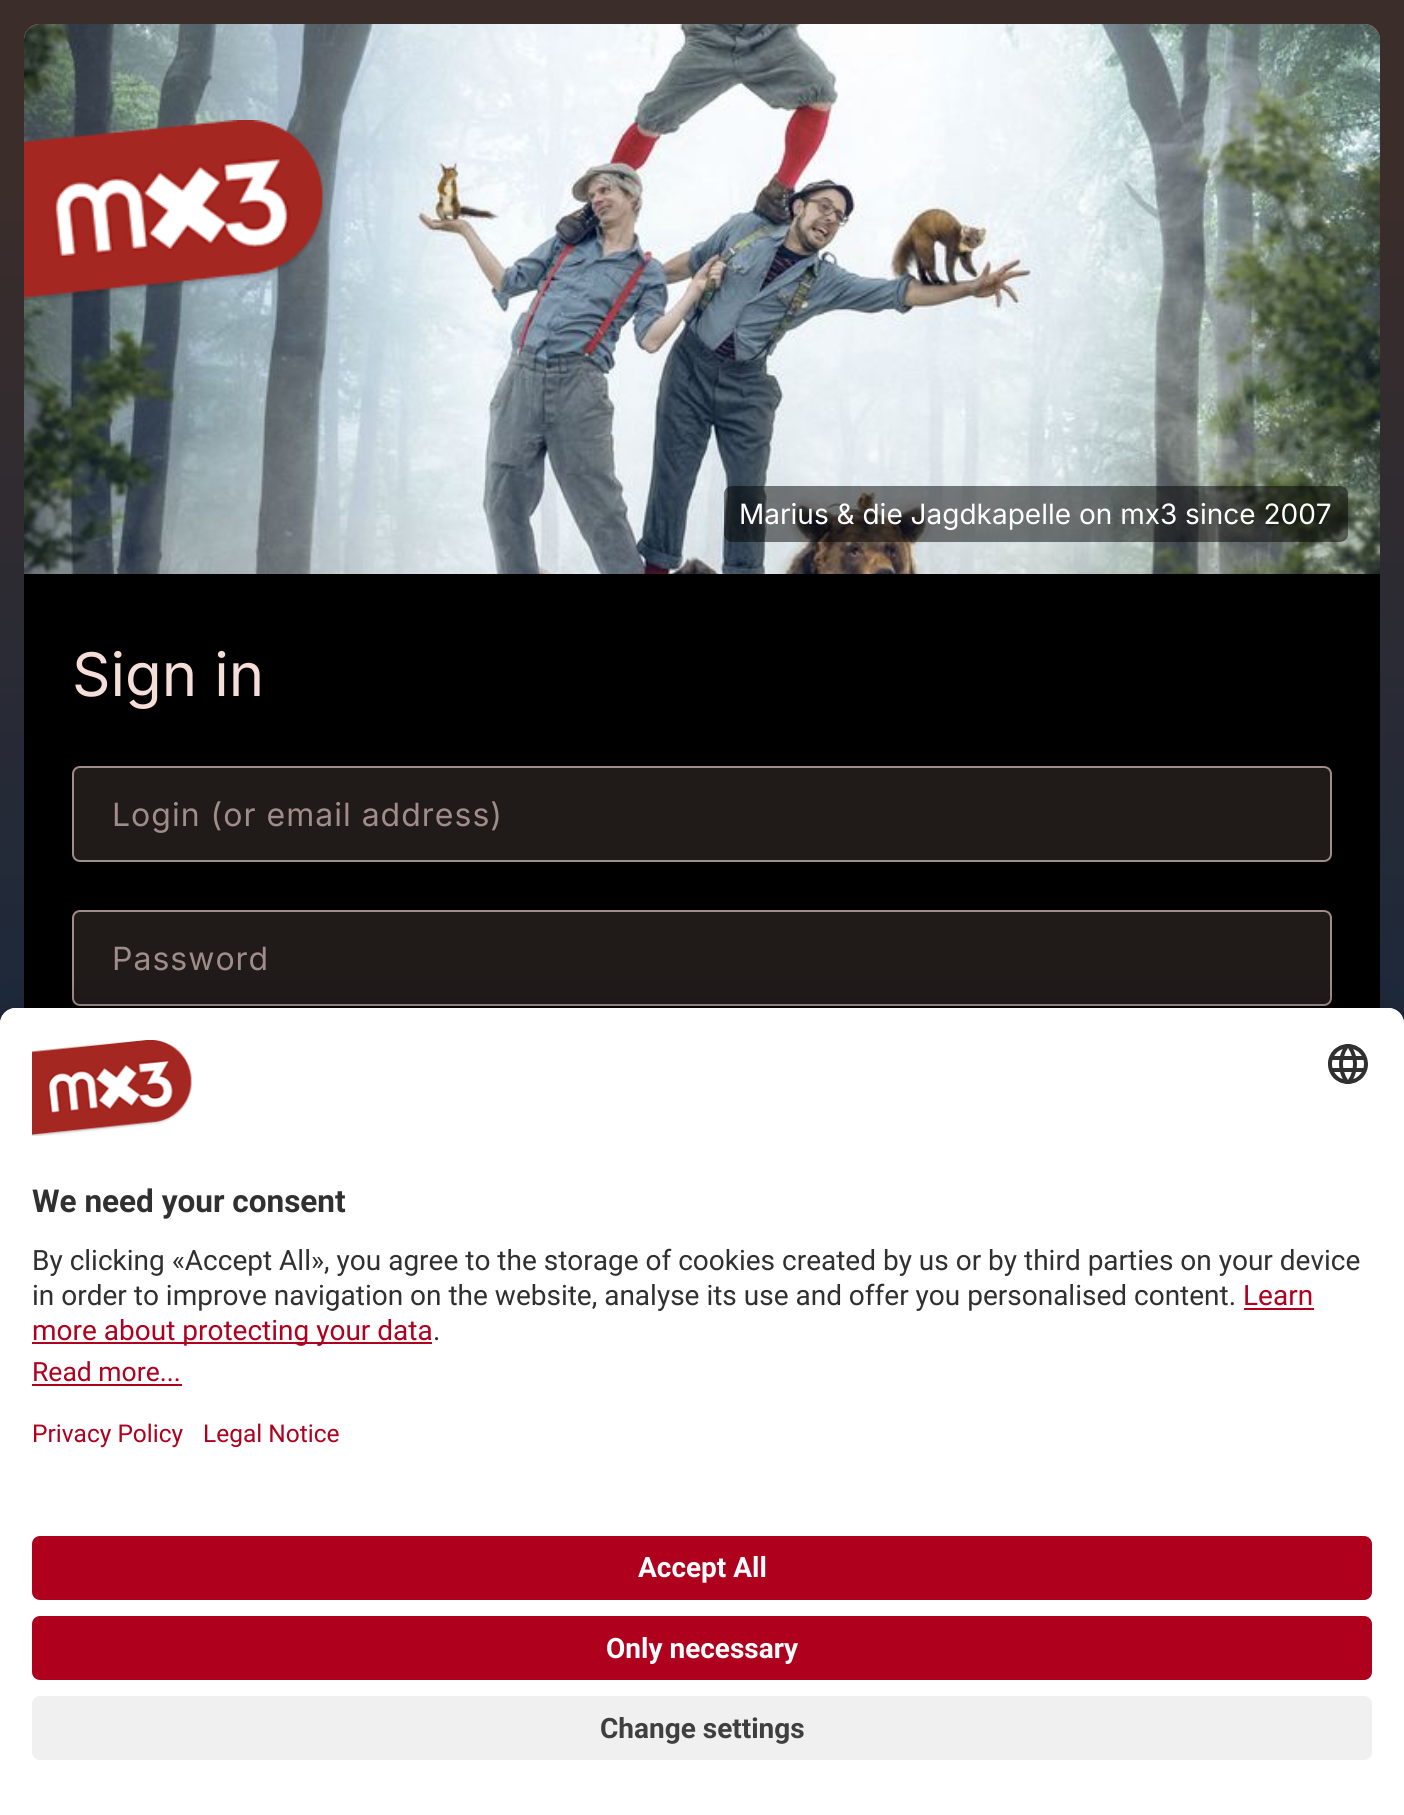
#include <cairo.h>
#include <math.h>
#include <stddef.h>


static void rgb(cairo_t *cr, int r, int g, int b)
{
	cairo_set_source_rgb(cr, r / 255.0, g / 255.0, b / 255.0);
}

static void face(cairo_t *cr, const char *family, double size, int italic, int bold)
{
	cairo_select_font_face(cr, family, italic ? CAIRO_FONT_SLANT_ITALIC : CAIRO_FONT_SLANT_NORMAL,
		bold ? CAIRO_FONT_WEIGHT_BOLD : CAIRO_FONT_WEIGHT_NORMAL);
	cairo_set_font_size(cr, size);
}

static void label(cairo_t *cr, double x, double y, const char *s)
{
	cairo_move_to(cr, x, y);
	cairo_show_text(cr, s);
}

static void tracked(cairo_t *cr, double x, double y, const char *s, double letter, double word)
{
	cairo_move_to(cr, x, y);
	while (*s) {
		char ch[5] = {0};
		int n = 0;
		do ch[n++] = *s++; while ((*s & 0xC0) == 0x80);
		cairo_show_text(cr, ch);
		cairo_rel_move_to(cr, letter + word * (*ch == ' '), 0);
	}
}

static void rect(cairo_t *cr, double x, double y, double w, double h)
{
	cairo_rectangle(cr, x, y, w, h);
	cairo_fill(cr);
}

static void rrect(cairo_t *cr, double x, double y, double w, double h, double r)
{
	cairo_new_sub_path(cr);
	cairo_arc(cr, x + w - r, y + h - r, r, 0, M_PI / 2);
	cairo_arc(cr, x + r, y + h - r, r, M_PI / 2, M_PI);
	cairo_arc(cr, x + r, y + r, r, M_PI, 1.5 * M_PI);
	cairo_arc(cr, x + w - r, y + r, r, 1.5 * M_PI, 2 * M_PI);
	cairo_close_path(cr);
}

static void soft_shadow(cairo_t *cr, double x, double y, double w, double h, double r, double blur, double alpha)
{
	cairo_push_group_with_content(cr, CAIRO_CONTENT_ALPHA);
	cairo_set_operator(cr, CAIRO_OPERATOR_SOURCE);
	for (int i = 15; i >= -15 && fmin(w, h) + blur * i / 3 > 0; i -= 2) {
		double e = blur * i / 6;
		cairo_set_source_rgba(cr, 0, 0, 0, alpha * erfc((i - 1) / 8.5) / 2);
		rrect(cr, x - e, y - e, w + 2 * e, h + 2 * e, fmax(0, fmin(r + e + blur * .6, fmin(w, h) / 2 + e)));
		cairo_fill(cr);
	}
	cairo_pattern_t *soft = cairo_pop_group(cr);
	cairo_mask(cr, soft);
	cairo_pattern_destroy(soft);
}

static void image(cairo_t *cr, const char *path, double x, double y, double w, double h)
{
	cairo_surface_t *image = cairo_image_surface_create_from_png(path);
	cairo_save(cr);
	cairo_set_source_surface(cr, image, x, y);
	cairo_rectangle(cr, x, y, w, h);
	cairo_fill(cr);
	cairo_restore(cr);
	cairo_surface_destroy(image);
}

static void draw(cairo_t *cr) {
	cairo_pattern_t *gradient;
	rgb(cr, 255, 255, 255);
	cairo_paint(cr);
	gradient = cairo_pattern_create_linear(702, 0, 702, 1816);
	cairo_pattern_add_color_stop_rgba(gradient, 0.1, 0.231, 0.176, 0.165, 1);
	cairo_pattern_add_color_stop_rgba(gradient, 0.55, 0.118, 0.161, 0.231, 1);
	cairo_pattern_add_color_stop_rgba(gradient, 1, 0.514, 0.094, 0.263, 1);
	cairo_set_source(cr, gradient);
	cairo_pattern_destroy(gradient);
	rect(cr, 0, 0, 1404, 1024);
	rgb(cr, 0, 0, 0);
	rrect(cr, 24, 24, 1356, 1446, 16);
	cairo_fill(cr);
	rgb(cr, 255, 180, 163);
	cairo_new_path(cr);
	cairo_move_to(cr, 40, 24);
	cairo_line_to(cr, 1364, 24);
	cairo_curve_to(cr, 1373, 24, 1380, 31, 1380, 40);
	cairo_line_to(cr, 1380, 574);
	cairo_line_to(cr, 24, 574);
	cairo_line_to(cr, 24, 40);
	cairo_curve_to(cr, 24, 31, 31, 24, 40, 24);
	cairo_close_path(cr);
	cairo_fill(cr);
	image(cr, "image0.png", 24, 24, 1356, 550);
	image(cr, "image1.png", 24, 120, 300, 180);
	cairo_set_source_rgba(cr, 0, 0, 0, 0.5);
	rrect(cr, 724, 486, 624, 56, 8);
	cairo_fill(cr);
	face(cr, "Inter", 28, 0, 0);
	rgb(cr, 255, 255, 255);
	label(cr, 739, 524, "Marius & die Jagdkapelle on mx3 since 2007");
	face(cr, "Inter", 60, 0, 0);
	rgb(cr, 245, 221, 216);
	label(cr, 72, 696, "Sign in");
	rgb(cr, 32, 26, 25);
	rrect(cr, 73, 767, 1258, 94, 7);
	cairo_fill_preserve(cr);
	rgb(cr, 160, 140, 136);
	cairo_stroke(cr);
	face(cr, "Inter", 32, 0, 0);
	tracked(cr, 112, 826, "Login (or email address)", 1, 0);
	rgb(cr, 32, 26, 25);
	rrect(cr, 73, 911, 1258, 94, 7);
	cairo_fill_preserve(cr);
	rgb(cr, 160, 140, 136);
	cairo_stroke(cr);
	tracked(cr, 112, 970, "Password", 1, 0);
	rgb(cr, 0, 0, 0);
	soft_shadow(cr, 0, 1048, 1404, 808, 16, 28, 0.3);
	soft_shadow(cr, 0, 1018, 1404, 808, 16, 26, 0.22);
	rgb(cr, 255, 255, 255);
	cairo_new_path(cr);
	cairo_move_to(cr, 16, 1008);
	cairo_line_to(cr, 1388, 1008);
	cairo_curve_to(cr, 1397, 1008, 1404, 1015, 1404, 1024);
	cairo_line_to(cr, 1404, 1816);
	cairo_line_to(cr, 0, 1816);
	cairo_line_to(cr, 0, 1024);
	cairo_curve_to(cr, 0, 1015, 7, 1008, 16, 1008);
	cairo_close_path(cr);
	cairo_fill(cr);
	cairo_new_path(cr);
	cairo_move_to(cr, 16, 1008);
	cairo_line_to(cr, 1388, 1008);
	cairo_curve_to(cr, 1397, 1008, 1404, 1015, 1404, 1024);
	cairo_line_to(cr, 1404, 1512);
	cairo_line_to(cr, 0, 1512);
	cairo_line_to(cr, 0, 1024);
	cairo_curve_to(cr, 0, 1015, 7, 1008, 16, 1008);
	cairo_close_path(cr);
	cairo_fill(cr);
	image(cr, "image2.png", 32, 1040, 160, 96);
	image(cr, "image3.png", 1328, 1044, 40, 40);
	face(cr, "Roboto", 31.5, 0, 1);
	rgb(cr, 48, 48, 48);
	label(cr, 32, 1212, "We need your consent");
	face(cr, "Roboto", 28, 0, 0);
	label(cr, 32, 1270, "By clicking «Accept All», you agree to the storage of cookies created by us or by third parties on your device");
	label(cr, 32, 1305, "in order to improve navigation on the website, analyse its use and offer you personalised content.");
	rgb(cr, 175, 0, 30);
	label(cr, 1243, 1305, "Learn");
	rect(cr, 1244, 1308, 70, 2);
	rect(cr, 32, 1342, 400, 2);
	label(cr, 32, 1340, "more about protecting your data");
	rgb(cr, 48, 48, 48);
	label(cr, 433, 1340, ".");
	face(cr, "Roboto", 26.5, 0, 0);
	rgb(cr, 175, 0, 30);
	label(cr, 32, 1381, "Read more...");
	rect(cr, 32, 1384, 150, 2);
	face(cr, "Roboto", 24.5, 0, 0);
	label(cr, 32, 1442, "Privacy Policy");
	label(cr, 203, 1442, "Legal Notice");
	rrect(cr, 32, 1536, 1340, 64, 8);
	cairo_fill(cr);
	face(cr, "Roboto", 28, 0, 1);
	rgb(cr, 255, 255, 255);
	label(cr, 638, 1577, "Accept All");
	rgb(cr, 175, 0, 30);
	rrect(cr, 32, 1616, 1340, 64, 8);
	cairo_fill(cr);
	rgb(cr, 255, 255, 255);
	label(cr, 606, 1658, "Only necessary");
	rgb(cr, 240, 240, 240);
	rrect(cr, 32, 1696, 1340, 64, 8);
	cairo_fill(cr);
	rgb(cr, 63, 63, 63);
	label(cr, 600, 1738, "Change settings");
}

int main(void) {
	cairo_surface_t *surface = cairo_image_surface_create(CAIRO_FORMAT_RGB24, 1404, 1815);
	cairo_t *cr = cairo_create(surface);
	cairo_font_options_t *options = cairo_font_options_create();
	cairo_font_options_set_hint_metrics(options, CAIRO_HINT_METRICS_OFF);
	cairo_font_options_set_hint_style(options, CAIRO_HINT_STYLE_NONE);
	cairo_set_font_options(cr, options);
	cairo_set_miter_limit(cr, 4);
	draw(cr);
	cairo_surface_write_to_png(surface, "render.png");
	cairo_font_options_destroy(options);
	cairo_destroy(cr);
	cairo_surface_destroy(surface);
	return 0;
}
